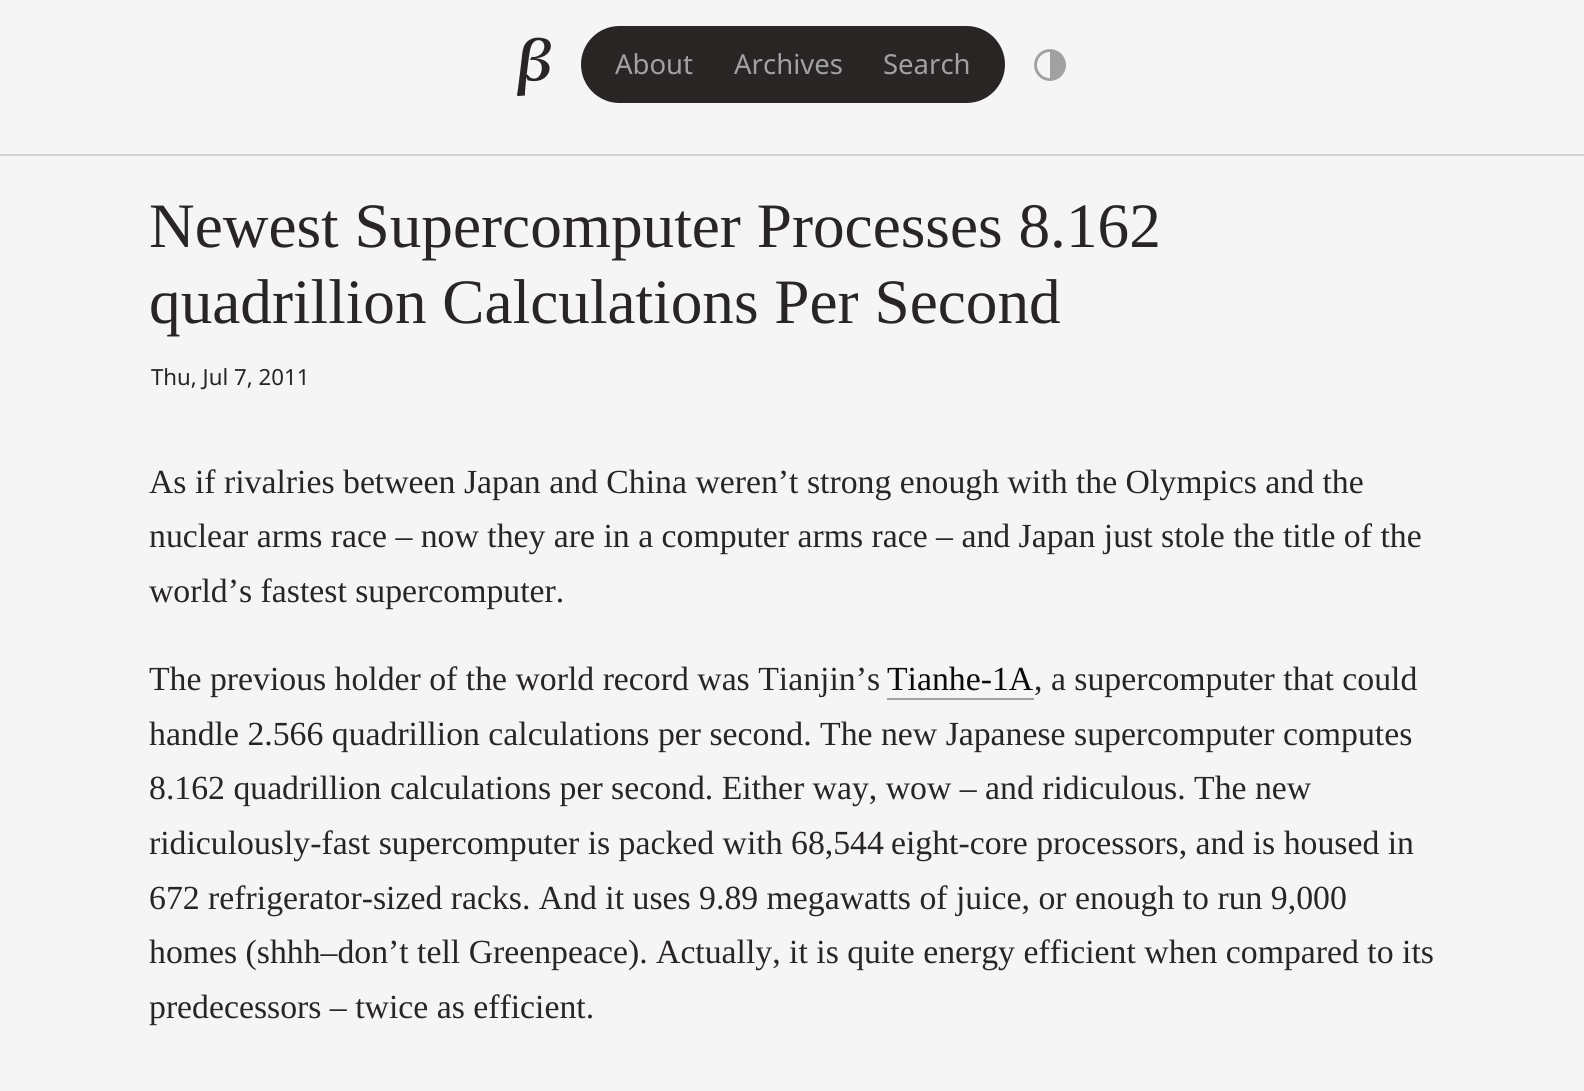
#include <cairo.h>
#include <math.h>
#include <stddef.h>


static void rgb(cairo_t *cr, int r, int g, int b)
{
	cairo_set_source_rgb(cr, r / 255.0, g / 255.0, b / 255.0);
}

static void face(cairo_t *cr, const char *family, double size, int italic, int bold)
{
	cairo_select_font_face(cr, family, italic ? CAIRO_FONT_SLANT_ITALIC : CAIRO_FONT_SLANT_NORMAL,
		bold ? CAIRO_FONT_WEIGHT_BOLD : CAIRO_FONT_WEIGHT_NORMAL);
	cairo_set_font_size(cr, size);
}

static void label(cairo_t *cr, double x, double y, const char *s)
{
	cairo_move_to(cr, x, y);
	cairo_show_text(cr, s);
}

static void rect(cairo_t *cr, double x, double y, double w, double h)
{
	cairo_rectangle(cr, x, y, w, h);
	cairo_fill(cr);
}

static void rrect(cairo_t *cr, double x, double y, double w, double h, double r)
{
	cairo_new_sub_path(cr);
	cairo_arc(cr, x + w - r, y + h - r, r, 0, M_PI / 2);
	cairo_arc(cr, x + r, y + h - r, r, M_PI / 2, M_PI);
	cairo_arc(cr, x + r, y + r, r, M_PI, 1.5 * M_PI);
	cairo_arc(cr, x + w - r, y + r, r, 1.5 * M_PI, 2 * M_PI);
	cairo_close_path(cr);
}

static void image(cairo_t *cr, const char *path, double x, double y, double w, double h)
{
	cairo_surface_t *image = cairo_image_surface_create_from_png(path);
	cairo_save(cr);
	cairo_set_source_surface(cr, image, x, y);
	cairo_rectangle(cr, x, y, w, h);
	cairo_fill(cr);
	cairo_restore(cr);
	cairo_surface_destroy(image);
}

static void draw(cairo_t *cr) {
	rgb(cr, 245, 245, 245);
	cairo_paint(cr);
	rgb(cr, 212, 212, 212);
	rect(cr, 0, 154, 1584, 2);
	image(cr, "image0.png", 517, 37, 34, 60);
	rgb(cr, 41, 37, 36);
	rrect(cr, 581, 26, 424, 77, 38.5);
	cairo_fill(cr);
	face(cr, "Noto Sans", 27.5, 0, 0);
	rgb(cr, 161, 161, 161);
	label(cr, 615, 74, "About");
	label(cr, 734, 74, "Archives");
	label(cr, 883, 74, "Search");
	cairo_new_path(cr);
	cairo_arc(cr, 1050, 65, 14.5, 0, 2 * M_PI);
	cairo_set_line_width(cr, 2.9);
	cairo_stroke(cr);
	cairo_new_path(cr);
	cairo_move_to(cr, 1050, 50);
	cairo_line_to(cr, 1050, 79.5);
	cairo_curve_to(cr, 1069, 79.5, 1069, 50, 1050, 50);
	cairo_close_path(cr);
	cairo_fill(cr);
	face(cr, "Liberation Serif", 63.25, 0, 0);
	rgb(cr, 41, 37, 36);
	label(cr, 149, 247, "Newest Supercomputer Processes 8.162");
	label(cr, 149, 323, "quadrillion Calculations Per Second");
	face(cr, "Noto Sans", 22.25, 0, 0);
	label(cr, 151, 385, "Thu, Jul 7, 2011");
	face(cr, "Liberation Serif", 33.75, 0, 0);
	label(cr, 149, 493, "As if rivalries between Japan and China weren’t strong enough with the Olympics and the");
	label(cr, 149, 547, "nuclear arms race – now they are in a computer arms race – and Japan just stole the title of the");
	label(cr, 149, 602, "world’s fastest supercomputer.");
	label(cr, 149, 690, "The previous holder of the world record was Tianjin’s");
	rgb(cr, 10, 10, 10);
	label(cr, 887, 690, "Tianhe-1A");
	rgb(cr, 161, 161, 161);
	rect(cr, 887, 698, 147, 2);
	rgb(cr, 41, 37, 36);
	label(cr, 1034, 690, ", a supercomputer that could");
	label(cr, 149, 745, "handle 2.566 quadrillion calculations per second. The new Japanese supercomputer computes");
	label(cr, 149, 799, "8.162 quadrillion calculations per second. Either way, wow – and ridiculous. The new");
	label(cr, 149, 854, "ridiculously-fast supercomputer is packed with 68,544");
	label(cr, 891, 854, "eight-core processors, and is housed in");
	label(cr, 149, 909, "672 refrigerator-sized racks. And it uses 9.89 megawatts of juice, or enough to run 9,000");
	label(cr, 149, 963, "homes (shhh–don’t tell Greenpeace). Actually, it is quite energy efficient when compared to its");
	label(cr, 149, 1018, "predecessors – twice as efficient.");
}

int main(void) {
	cairo_surface_t *surface = cairo_image_surface_create(CAIRO_FORMAT_RGB24, 1584, 1091);
	cairo_t *cr = cairo_create(surface);
	cairo_font_options_t *options = cairo_font_options_create();
	cairo_font_options_set_hint_metrics(options, CAIRO_HINT_METRICS_OFF);
	cairo_font_options_set_hint_style(options, CAIRO_HINT_STYLE_NONE);
	cairo_set_font_options(cr, options);
	cairo_set_miter_limit(cr, 4);
	draw(cr);
	cairo_surface_write_to_png(surface, "render.png");
	cairo_font_options_destroy(options);
	cairo_destroy(cr);
	cairo_surface_destroy(surface);
	return 0;
}
